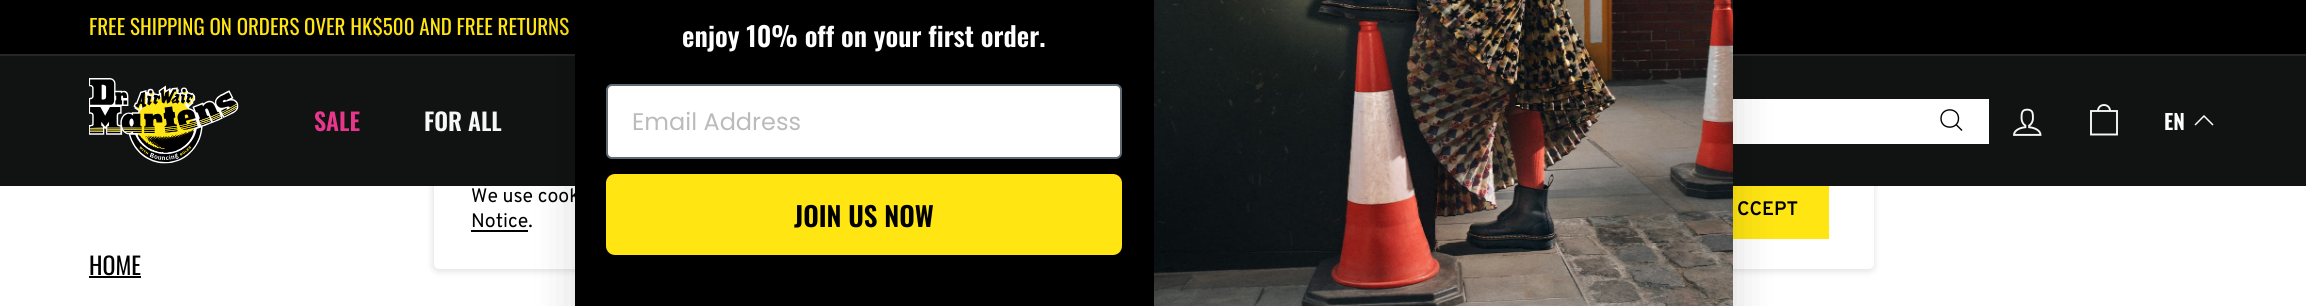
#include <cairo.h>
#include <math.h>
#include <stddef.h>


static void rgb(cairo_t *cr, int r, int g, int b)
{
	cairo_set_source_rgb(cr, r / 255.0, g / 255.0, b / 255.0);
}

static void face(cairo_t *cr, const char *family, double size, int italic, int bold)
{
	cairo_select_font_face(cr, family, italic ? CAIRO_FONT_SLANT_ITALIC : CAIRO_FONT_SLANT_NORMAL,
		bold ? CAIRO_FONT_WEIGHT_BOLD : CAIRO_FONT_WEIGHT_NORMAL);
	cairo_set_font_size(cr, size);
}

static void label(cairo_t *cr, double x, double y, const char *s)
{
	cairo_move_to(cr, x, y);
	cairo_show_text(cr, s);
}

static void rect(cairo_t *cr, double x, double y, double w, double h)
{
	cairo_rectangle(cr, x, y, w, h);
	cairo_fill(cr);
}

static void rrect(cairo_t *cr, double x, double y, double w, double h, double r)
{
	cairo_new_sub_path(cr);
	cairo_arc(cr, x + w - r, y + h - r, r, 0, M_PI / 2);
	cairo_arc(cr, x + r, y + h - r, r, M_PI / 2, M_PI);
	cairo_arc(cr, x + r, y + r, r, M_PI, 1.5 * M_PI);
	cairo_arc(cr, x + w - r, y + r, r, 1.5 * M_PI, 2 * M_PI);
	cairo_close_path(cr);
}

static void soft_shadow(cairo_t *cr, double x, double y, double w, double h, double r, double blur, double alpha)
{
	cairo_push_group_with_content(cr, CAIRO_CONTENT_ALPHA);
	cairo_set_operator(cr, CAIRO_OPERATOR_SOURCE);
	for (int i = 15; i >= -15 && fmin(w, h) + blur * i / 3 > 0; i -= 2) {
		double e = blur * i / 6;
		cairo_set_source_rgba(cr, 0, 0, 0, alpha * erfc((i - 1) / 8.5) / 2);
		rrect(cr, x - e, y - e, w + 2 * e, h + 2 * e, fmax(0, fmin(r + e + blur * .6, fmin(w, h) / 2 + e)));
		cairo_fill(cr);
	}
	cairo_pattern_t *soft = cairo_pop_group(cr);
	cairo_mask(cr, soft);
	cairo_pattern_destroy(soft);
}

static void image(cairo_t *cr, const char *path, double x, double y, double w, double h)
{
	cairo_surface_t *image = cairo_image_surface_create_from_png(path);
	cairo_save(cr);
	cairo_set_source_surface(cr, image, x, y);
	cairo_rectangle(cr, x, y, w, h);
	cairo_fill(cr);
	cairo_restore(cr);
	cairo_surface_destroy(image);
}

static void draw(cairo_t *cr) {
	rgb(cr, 255, 255, 255);
	cairo_paint(cr);
	rgb(cr, 0, 0, 0);
	rect(cr, 0, 0, 2306, 54);
	face(cr, "Oswald", 21, 0, 0);
	rgb(cr, 255, 229, 18);
	label(cr, 89, 35, "FREE SHIPPING ON ORDERS OVER HK$500 AND FREE RETURNS");
	rgb(cr, 38, 38, 38);
	rect(cr, 0, 54, 2306, 2);
	rgb(cr, 0, 0, 0);
	soft_shadow(cr, 432, 152, 1443, 120, 6, 3, 0.1);
	rgb(cr, 255, 255, 255);
	rrect(cr, 434, 152, 1440, 117, 5);
	cairo_fill(cr);
	rgb(cr, 17, 18, 18);
	rect(cr, 0, 56, 2306, 130);
	image(cr, "image0.png", 89, 78, 150, 86);
	face(cr, "Oswald SemiBold", 24, 0, 0);
	rgb(cr, 232, 54, 140);
	label(cr, 314, 131, "SALE");
	rgb(cr, 247, 247, 247);
	label(cr, 424, 131, "FOR ALL");
	rgb(cr, 255, 255, 255);
	rect(cr, 1733, 99, 256, 45);
	cairo_new_path(cr);
	cairo_move_to(cr, 1958.5, 118.5);
	cairo_curve_to(cr, 1958.5, 130, 1941, 130, 1941, 118.5);
	cairo_curve_to(cr, 1941, 107, 1958.5, 107, 1958.5, 118.5);
	cairo_close_path(cr);
	cairo_move_to(cr, 1962, 130.5);
	cairo_line_to(cr, 1956, 124.5);
	rgb(cr, 0, 0, 0);
	cairo_set_line_width(cr, 1.4);
	cairo_stroke(cr);
	image(cr, "image1.png", 2013, 108, 29, 28);
	cairo_new_path(cr);
	cairo_move_to(cr, 2098, 111);
	cairo_curve_to(cr, 2098, 103, 2110, 103, 2110, 111);
	cairo_move_to(cr, 2091, 111);
	cairo_line_to(cr, 2117, 111);
	cairo_line_to(cr, 2117, 134.5);
	cairo_line_to(cr, 2091, 134.5);
	cairo_close_path(cr);
	rgb(cr, 247, 247, 247);
	cairo_set_line_width(cr, 1.9);
	cairo_stroke(cr);
	face(cr, "Oswald SemiBold", 21, 0, 0);
	rgb(cr, 255, 255, 255);
	label(cr, 2164, 130, "EN");
	cairo_new_path(cr);
	cairo_move_to(cr, 2213, 125);
	cairo_line_to(cr, 2204, 116);
	cairo_line_to(cr, 2195, 125);
	cairo_set_line_width(cr, 1.5);
	cairo_stroke(cr);
	face(cr, "Overpass", 19.5, 0, 0);
	rgb(cr, 0, 0, 0);
	label(cr, 471, 202, "We use cook");
	label(cr, 471, 227, "Notice.");
	rect(cr, 471, 230, 57, 2);
	rgb(cr, 255, 229, 18);
	rect(cr, 1733, 186, 96, 53);
	face(cr, "Overpass SemiBold", 19.5, 0, 0);
	rgb(cr, 0, 0, 0);
	label(cr, 1737, 215, "CCEPT");
	face(cr, "Oswald", 24, 0, 0);
	label(cr, 89, 275, "HOME");
	rect(cr, 89, 276, 52, 2);
	rgb(cr, 0, 0, 0);
	soft_shadow(cr, 575, -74, 1158, 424, 6, 22.5, 0.15);
	rgb(cr, 0, 0, 0);
	rect(cr, 575, 54, 579, 252);
	face(cr, "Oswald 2 SemiBold", 27, 0, 0);
	rgb(cr, 255, 255, 255);
	label(cr, 682, 47, "enjoy 10% off on your first order.");
	rrect(cr, 607, 85, 514, 73, 5);
	cairo_fill_preserve(cr);
	rgb(cr, 96, 106, 114);
	cairo_set_line_width(cr, 2);
	cairo_stroke(cr);
	face(cr, "Poppins", 24, 0, 0);
	rgb(cr, 187, 187, 187);
	label(cr, 632, 130, "Email Address");
	rgb(cr, 255, 229, 18);
	rrect(cr, 606, 174, 516, 81, 9);
	cairo_fill(cr);
	face(cr, "Oswald 2 SemiBold", 27, 0, 0);
	rgb(cr, 0, 0, 0);
	label(cr, 794, 227, "JOIN US NOW");
	image(cr, "image2.png", 1154, 0, 579, 306);
}

int main(void) {
	cairo_surface_t *surface = cairo_image_surface_create(CAIRO_FORMAT_RGB24, 2306, 306);
	cairo_t *cr = cairo_create(surface);
	cairo_font_options_t *options = cairo_font_options_create();
	cairo_font_options_set_hint_metrics(options, CAIRO_HINT_METRICS_OFF);
	cairo_font_options_set_hint_style(options, CAIRO_HINT_STYLE_NONE);
	cairo_set_font_options(cr, options);
	cairo_set_miter_limit(cr, 4);
	draw(cr);
	cairo_surface_write_to_png(surface, "render.png");
	cairo_font_options_destroy(options);
	cairo_destroy(cr);
	cairo_surface_destroy(surface);
	return 0;
}
